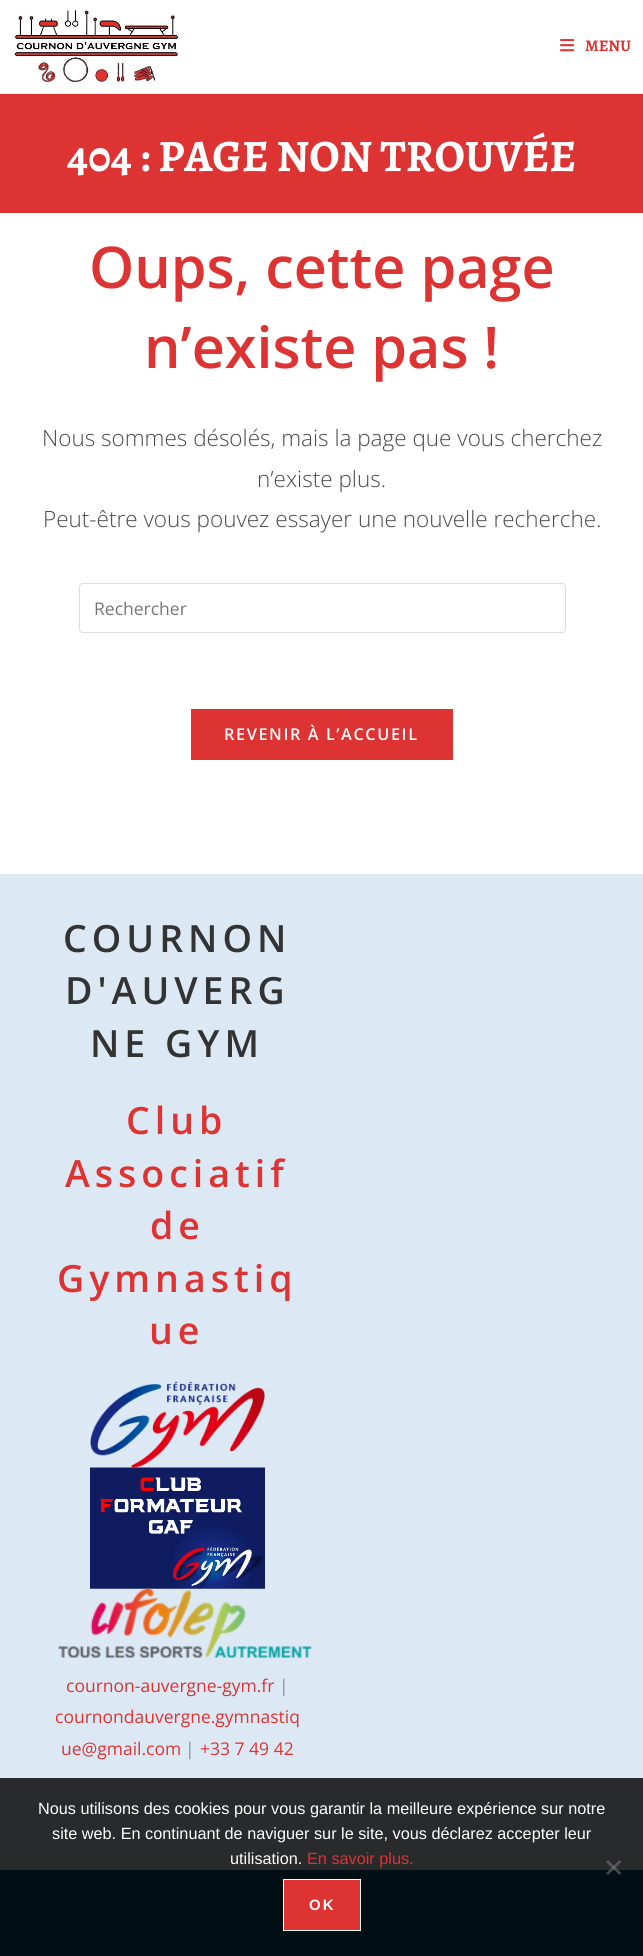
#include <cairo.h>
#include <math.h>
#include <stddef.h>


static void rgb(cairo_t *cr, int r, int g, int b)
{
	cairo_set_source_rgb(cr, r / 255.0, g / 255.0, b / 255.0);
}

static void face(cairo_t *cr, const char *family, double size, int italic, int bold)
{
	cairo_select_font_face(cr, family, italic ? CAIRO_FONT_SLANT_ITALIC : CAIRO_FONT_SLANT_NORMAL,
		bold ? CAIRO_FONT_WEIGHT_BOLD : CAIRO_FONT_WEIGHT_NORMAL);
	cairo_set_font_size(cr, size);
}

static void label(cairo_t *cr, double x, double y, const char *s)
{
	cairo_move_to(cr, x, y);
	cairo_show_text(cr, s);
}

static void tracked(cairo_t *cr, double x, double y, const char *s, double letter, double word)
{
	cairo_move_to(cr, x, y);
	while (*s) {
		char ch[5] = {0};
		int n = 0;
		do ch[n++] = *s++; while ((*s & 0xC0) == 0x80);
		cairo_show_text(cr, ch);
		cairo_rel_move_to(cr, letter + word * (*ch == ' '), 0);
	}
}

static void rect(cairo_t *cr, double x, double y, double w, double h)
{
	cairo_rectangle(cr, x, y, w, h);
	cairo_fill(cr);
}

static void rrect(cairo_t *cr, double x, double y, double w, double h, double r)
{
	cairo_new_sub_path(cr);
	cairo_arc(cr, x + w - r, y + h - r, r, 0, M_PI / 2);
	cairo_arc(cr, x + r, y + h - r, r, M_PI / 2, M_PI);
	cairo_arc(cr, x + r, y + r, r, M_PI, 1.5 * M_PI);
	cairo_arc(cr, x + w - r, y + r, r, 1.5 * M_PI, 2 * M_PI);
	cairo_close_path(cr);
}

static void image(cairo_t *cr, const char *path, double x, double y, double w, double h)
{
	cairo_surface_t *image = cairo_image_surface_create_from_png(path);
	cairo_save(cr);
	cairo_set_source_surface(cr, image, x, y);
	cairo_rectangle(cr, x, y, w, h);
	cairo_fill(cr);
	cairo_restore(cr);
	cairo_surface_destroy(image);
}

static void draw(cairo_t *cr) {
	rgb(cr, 255, 255, 255);
	cairo_paint(cr);
	rgb(cr, 241, 241, 241);
	rect(cr, 0, 93, 643, 1);
	image(cr, "image0.png", 12, 10, 167, 73);
	image(cr, "image1.png", 560, 39, 15, 13);
	face(cr, "Alegreya SC", 16.25, 0, 1);
	rgb(cr, 221, 51, 51);
	label(cr, 585, 51, "MENU");
	rect(cr, 0, 94, 643, 119);
	face(cr, "Alegreya SC", 45, 0, 1);
	rgb(cr, 255, 255, 255);
	label(cr, 67, 171, "404 : PAGE NON TROUVÉE");
	face(cr, "Open Sans SemiBold", 57.5, 0, 0);
	rgb(cr, 221, 51, 51);
	label(cr, 89, 288, "Oups, cette page");
	label(cr, 144, 368, "n’existe pas !");
	face(cr, "Open Sans Light", 22.5, 0, 0);
	rgb(cr, 74, 74, 74);
	label(cr, 42, 446, "Nous sommes désolés, mais la page que vous cherchez");
	label(cr, 257, 487, "n’existe plus.");
	label(cr, 43, 527, "Peut-être vous pouvez essayer une nouvelle recherche.");
	rrect(cr, 79.5, 583.5, 486, 49, 3.5);
	rgb(cr, 221, 221, 221);
	cairo_set_line_width(cr, 1);
	cairo_stroke(cr);
	face(cr, "Open Sans", 17.5, 0, 0);
	rgb(cr, 117, 117, 117);
	label(cr, 94, 615, "Rechercher");
	rgb(cr, 221, 51, 51);
	rect(cr, 191, 709, 262, 51);
	face(cr, "Open Sans SemiBold", 16.25, 0, 0);
	rgb(cr, 255, 255, 255);
	tracked(cr, 224, 740, "REVENIR À L’ACCUEIL", 1.6, 0);
	rgb(cr, 220, 233, 245);
	rect(cr, 0, 874, 643, 996);
	face(cr, "Open Sans SemiBold", 37.5, 0, 0);
	rgb(cr, 51, 51, 51);
	tracked(cr, 63, 952, "COURNON", 5, 0);
	tracked(cr, 65, 1004, "D'AUVERG", 5, 0);
	tracked(cr, 90, 1057, "NE GYM", 5, 0);
	rgb(cr, 221, 51, 51);
	tracked(cr, 126, 1134, "Club", 5, 0);
	tracked(cr, 65, 1187, "Associatif", 5, 0);
	tracked(cr, 150, 1239, "de", 5, 0);
	tracked(cr, 57, 1292, "Gymnastiq", 5, 0);
	tracked(cr, 149, 1344, "ue", 5, 0);
	image(cr, "image2.png", 90, 1381, 175, 87);
	image(cr, "image3.png", 90, 1467, 175, 122);
	image(cr, "image4.png", 58, 1588, 254, 70);
	face(cr, "Open Sans", 17.5, 0, 0);
	label(cr, 66, 1692, "cournon-auvergne-gym.fr");
	rgb(cr, 112, 142, 159);
	label(cr, 279, 1692, "|");
	rgb(cr, 221, 51, 51);
	label(cr, 55, 1723, "cournondauvergne.gymnastiq");
	label(cr, 61, 1755, "ue@gmail.com");
	rgb(cr, 112, 142, 159);
	label(cr, 185, 1755, "|");
	rgb(cr, 221, 51, 51);
	label(cr, 200, 1755, "+33 7 49 42");
	rgb(cr, 0, 82, 107);
	rect(cr, 0, 1870, 643, 86);
	cairo_set_source_rgba(cr, 0, 0, 0, 0.82);
	rect(cr, 0, 1778, 643, 178);
	face(cr, "Liberation Sans", 16.25, 0, 0);
	rgb(cr, 255, 255, 255);
	label(cr, 38, 1814, "Nous utilisons des cookies pour vous garantir la meilleure expérience sur notre");
	label(cr, 52, 1839, "site web. En continuant de naviguer sur le site, vous déclarez accepter leur");
	label(cr, 230, 1864, "utilisation.");
	rgb(cr, 221, 51, 51);
	label(cr, 307, 1864, "En savoir plus.");
	cairo_set_source_rgba(cr, 0.502, 0.502, 0.502, 0.5);
	cairo_new_path(cr);
	cairo_move_to(cr, 619.5, 1860);
	cairo_line_to(cr, 621.5, 1862);
	cairo_line_to(cr, 608, 1875);
	cairo_line_to(cr, 606, 1873);
	cairo_close_path(cr);
	cairo_fill(cr);
	cairo_new_path(cr);
	cairo_move_to(cr, 606, 1862);
	cairo_line_to(cr, 608, 1860);
	cairo_line_to(cr, 621.5, 1873);
	cairo_line_to(cr, 619.5, 1875);
	cairo_close_path(cr);
	cairo_fill(cr);
	rgb(cr, 221, 51, 51);
	cairo_rectangle(cr, 283.5, 1879.5, 77, 51);
	cairo_fill_preserve(cr);
	rgb(cr, 255, 255, 255);
	cairo_stroke(cr);
	face(cr, "Liberation Sans", 15, 0, 1);
	tracked(cr, 309, 1910, "OK", 2, 0);
}

int main(void) {
	cairo_surface_t *surface = cairo_image_surface_create(CAIRO_FORMAT_RGB24, 643, 1956);
	cairo_t *cr = cairo_create(surface);
	cairo_font_options_t *options = cairo_font_options_create();
	cairo_font_options_set_hint_metrics(options, CAIRO_HINT_METRICS_OFF);
	cairo_font_options_set_hint_style(options, CAIRO_HINT_STYLE_NONE);
	cairo_set_font_options(cr, options);
	cairo_set_miter_limit(cr, 4);
	draw(cr);
	cairo_surface_write_to_png(surface, "render.png");
	cairo_font_options_destroy(options);
	cairo_destroy(cr);
	cairo_surface_destroy(surface);
	return 0;
}
